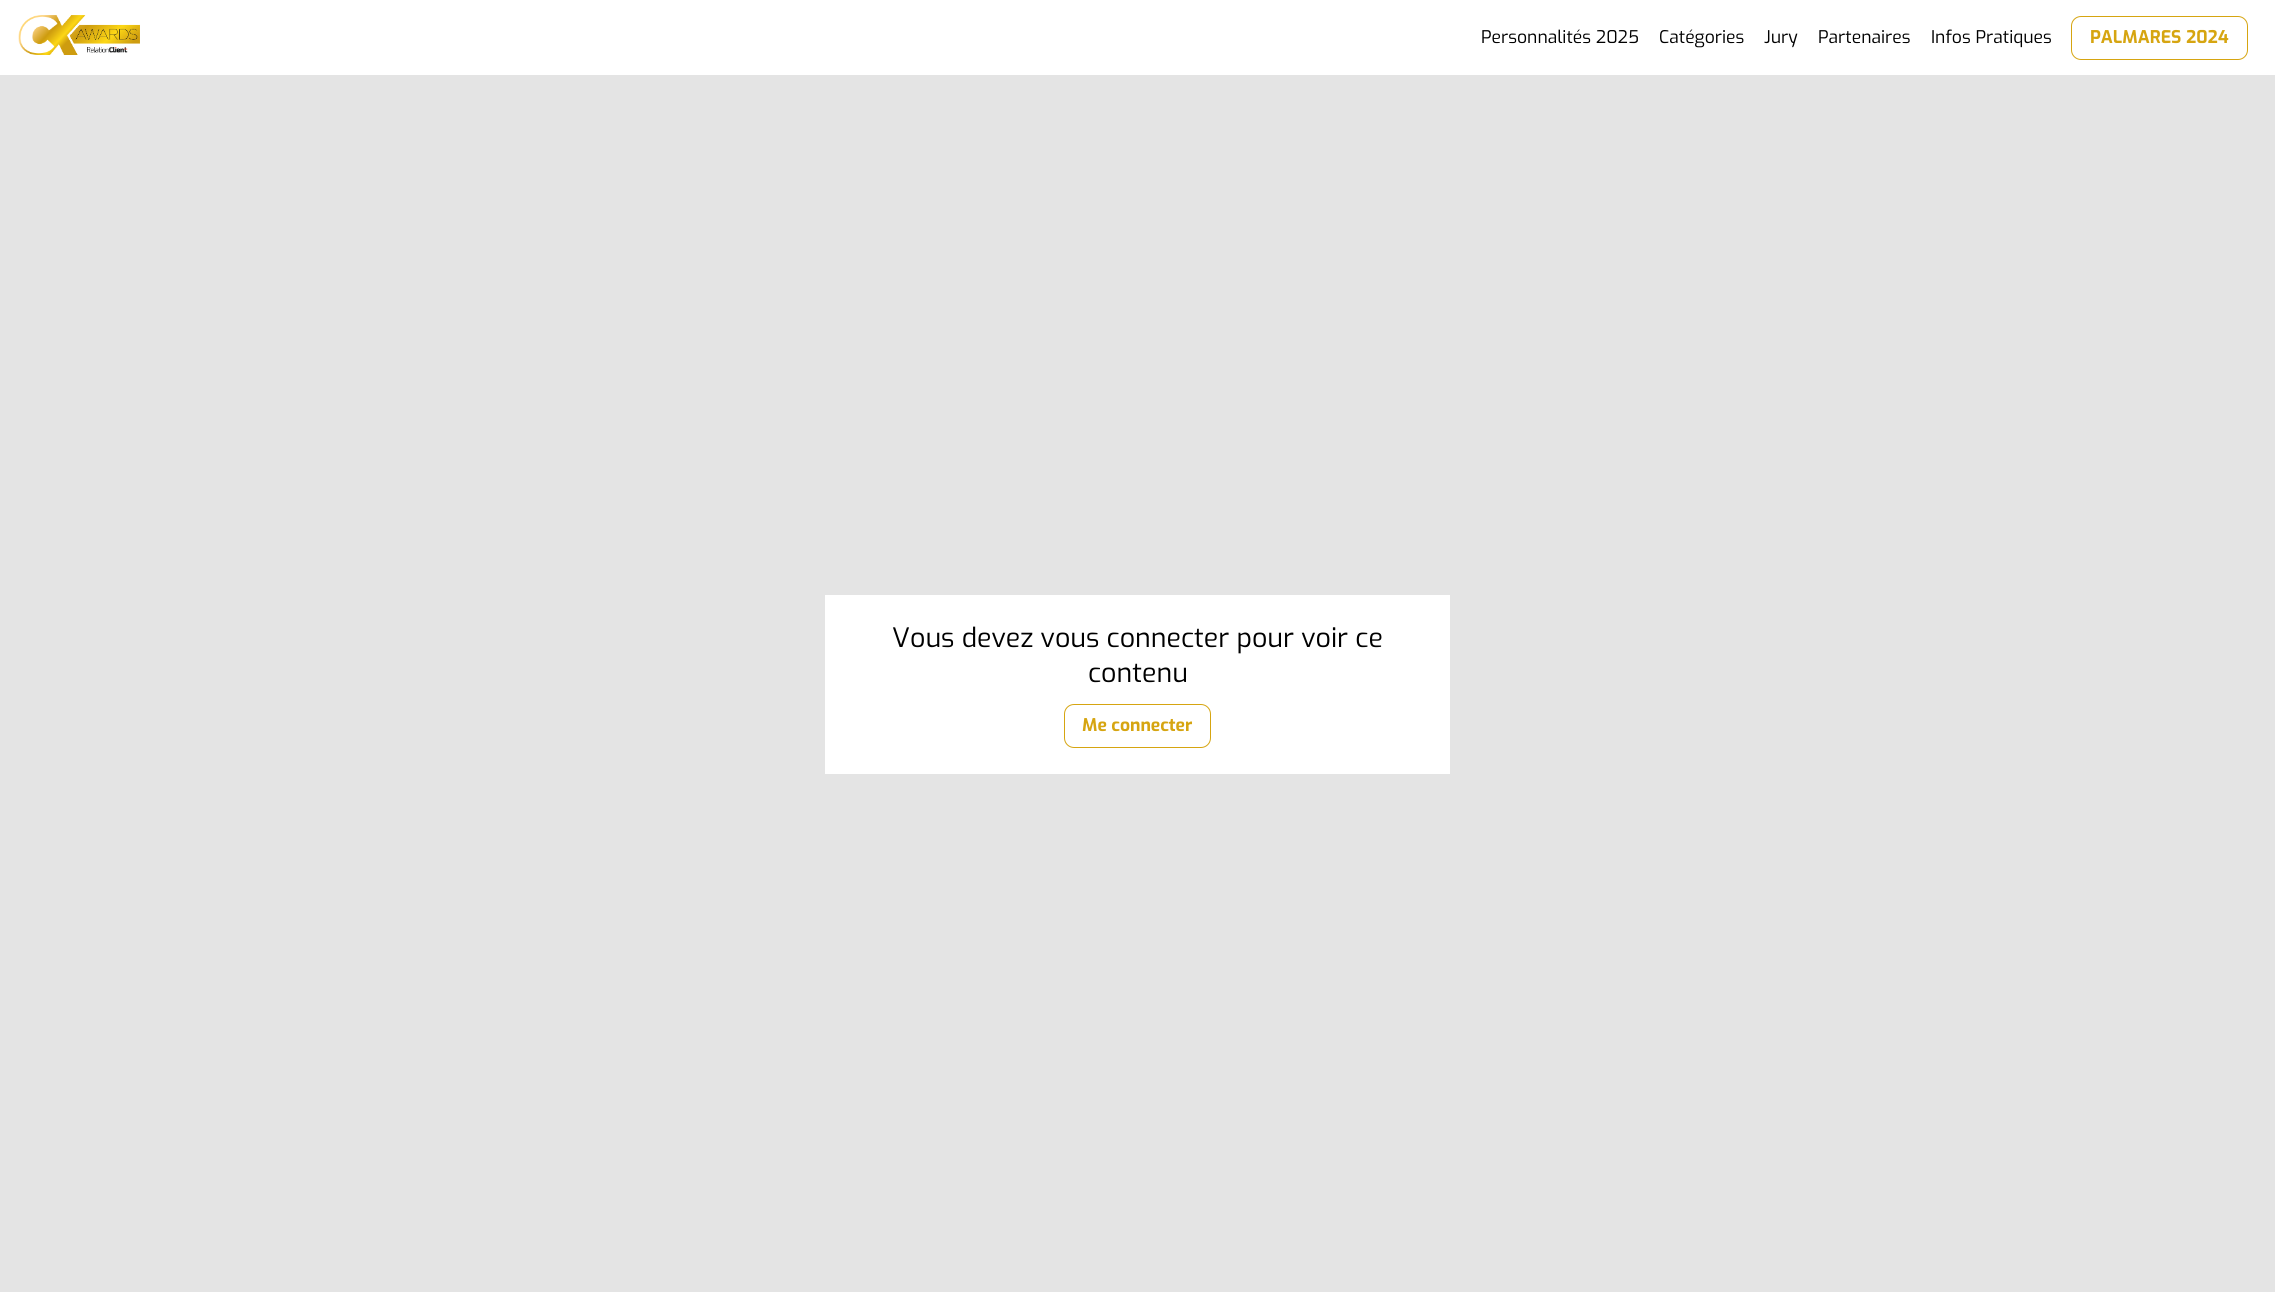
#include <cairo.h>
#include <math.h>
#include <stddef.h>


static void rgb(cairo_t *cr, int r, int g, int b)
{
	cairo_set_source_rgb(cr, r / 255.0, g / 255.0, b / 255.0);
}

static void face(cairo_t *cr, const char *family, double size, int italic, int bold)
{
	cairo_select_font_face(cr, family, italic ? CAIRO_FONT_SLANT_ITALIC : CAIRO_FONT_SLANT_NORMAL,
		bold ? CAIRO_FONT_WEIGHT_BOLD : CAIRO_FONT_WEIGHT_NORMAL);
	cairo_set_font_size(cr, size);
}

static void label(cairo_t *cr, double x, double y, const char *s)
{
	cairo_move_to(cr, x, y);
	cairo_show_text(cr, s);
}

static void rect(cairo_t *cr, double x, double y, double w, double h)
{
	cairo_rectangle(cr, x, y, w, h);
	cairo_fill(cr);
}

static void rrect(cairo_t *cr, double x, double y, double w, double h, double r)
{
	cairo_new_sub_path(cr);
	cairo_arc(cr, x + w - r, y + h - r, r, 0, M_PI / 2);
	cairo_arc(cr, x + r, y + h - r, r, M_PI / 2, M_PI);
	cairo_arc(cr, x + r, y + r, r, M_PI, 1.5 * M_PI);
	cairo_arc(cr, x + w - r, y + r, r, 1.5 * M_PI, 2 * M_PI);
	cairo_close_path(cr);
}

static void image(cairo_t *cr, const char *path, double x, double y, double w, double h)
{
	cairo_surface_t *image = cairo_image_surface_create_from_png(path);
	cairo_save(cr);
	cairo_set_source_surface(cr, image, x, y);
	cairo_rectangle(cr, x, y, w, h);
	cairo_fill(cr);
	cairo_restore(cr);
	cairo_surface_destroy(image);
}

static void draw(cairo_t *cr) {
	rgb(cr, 228, 228, 228);
	cairo_paint(cr);
	rgb(cr, 255, 255, 255);
	rect(cr, 0, 0, 2275, 75);
	image(cr, "image0.png", 18, 15, 122, 40);
	face(cr, "Exo", 17.5, 0, 0);
	rgb(cr, 0, 0, 0);
	label(cr, 1481, 43, "Personnalités 2025");
	label(cr, 1659, 43, "Catégories");
	label(cr, 1764, 43, "Jury");
	label(cr, 1818, 43, "Partenaires");
	label(cr, 1931, 43, "Infos Pratiques");
	rrect(cr, 2071.5, 16.5, 176, 43, 9.5);
	rgb(cr, 214, 165, 17);
	cairo_set_line_width(cr, 1);
	cairo_stroke(cr);
	face(cr, "Exo", 17.5, 0, 1);
	label(cr, 2090, 43, "PALMARES 2024");
	rgb(cr, 255, 255, 255);
	rect(cr, 825, 595, 625, 179);
	face(cr, "Exo", 26.7, 0, 0);
	rgb(cr, 0, 0, 0);
	label(cr, 892, 647, "Vous devez vous connecter pour voir ce");
	label(cr, 1088, 682, "contenu");
	rrect(cr, 1064.5, 704.5, 146, 43, 9.5);
	rgb(cr, 214, 165, 17);
	cairo_stroke(cr);
	face(cr, "Exo", 17.5, 0, 1);
	label(cr, 1082, 731, "Me connecter");
}

int main(void) {
	cairo_surface_t *surface = cairo_image_surface_create(CAIRO_FORMAT_RGB24, 2275, 1292);
	cairo_t *cr = cairo_create(surface);
	cairo_font_options_t *options = cairo_font_options_create();
	cairo_font_options_set_hint_metrics(options, CAIRO_HINT_METRICS_OFF);
	cairo_font_options_set_hint_style(options, CAIRO_HINT_STYLE_NONE);
	cairo_set_font_options(cr, options);
	cairo_set_miter_limit(cr, 4);
	draw(cr);
	cairo_surface_write_to_png(surface, "render.png");
	cairo_font_options_destroy(options);
	cairo_destroy(cr);
	cairo_surface_destroy(surface);
	return 0;
}
